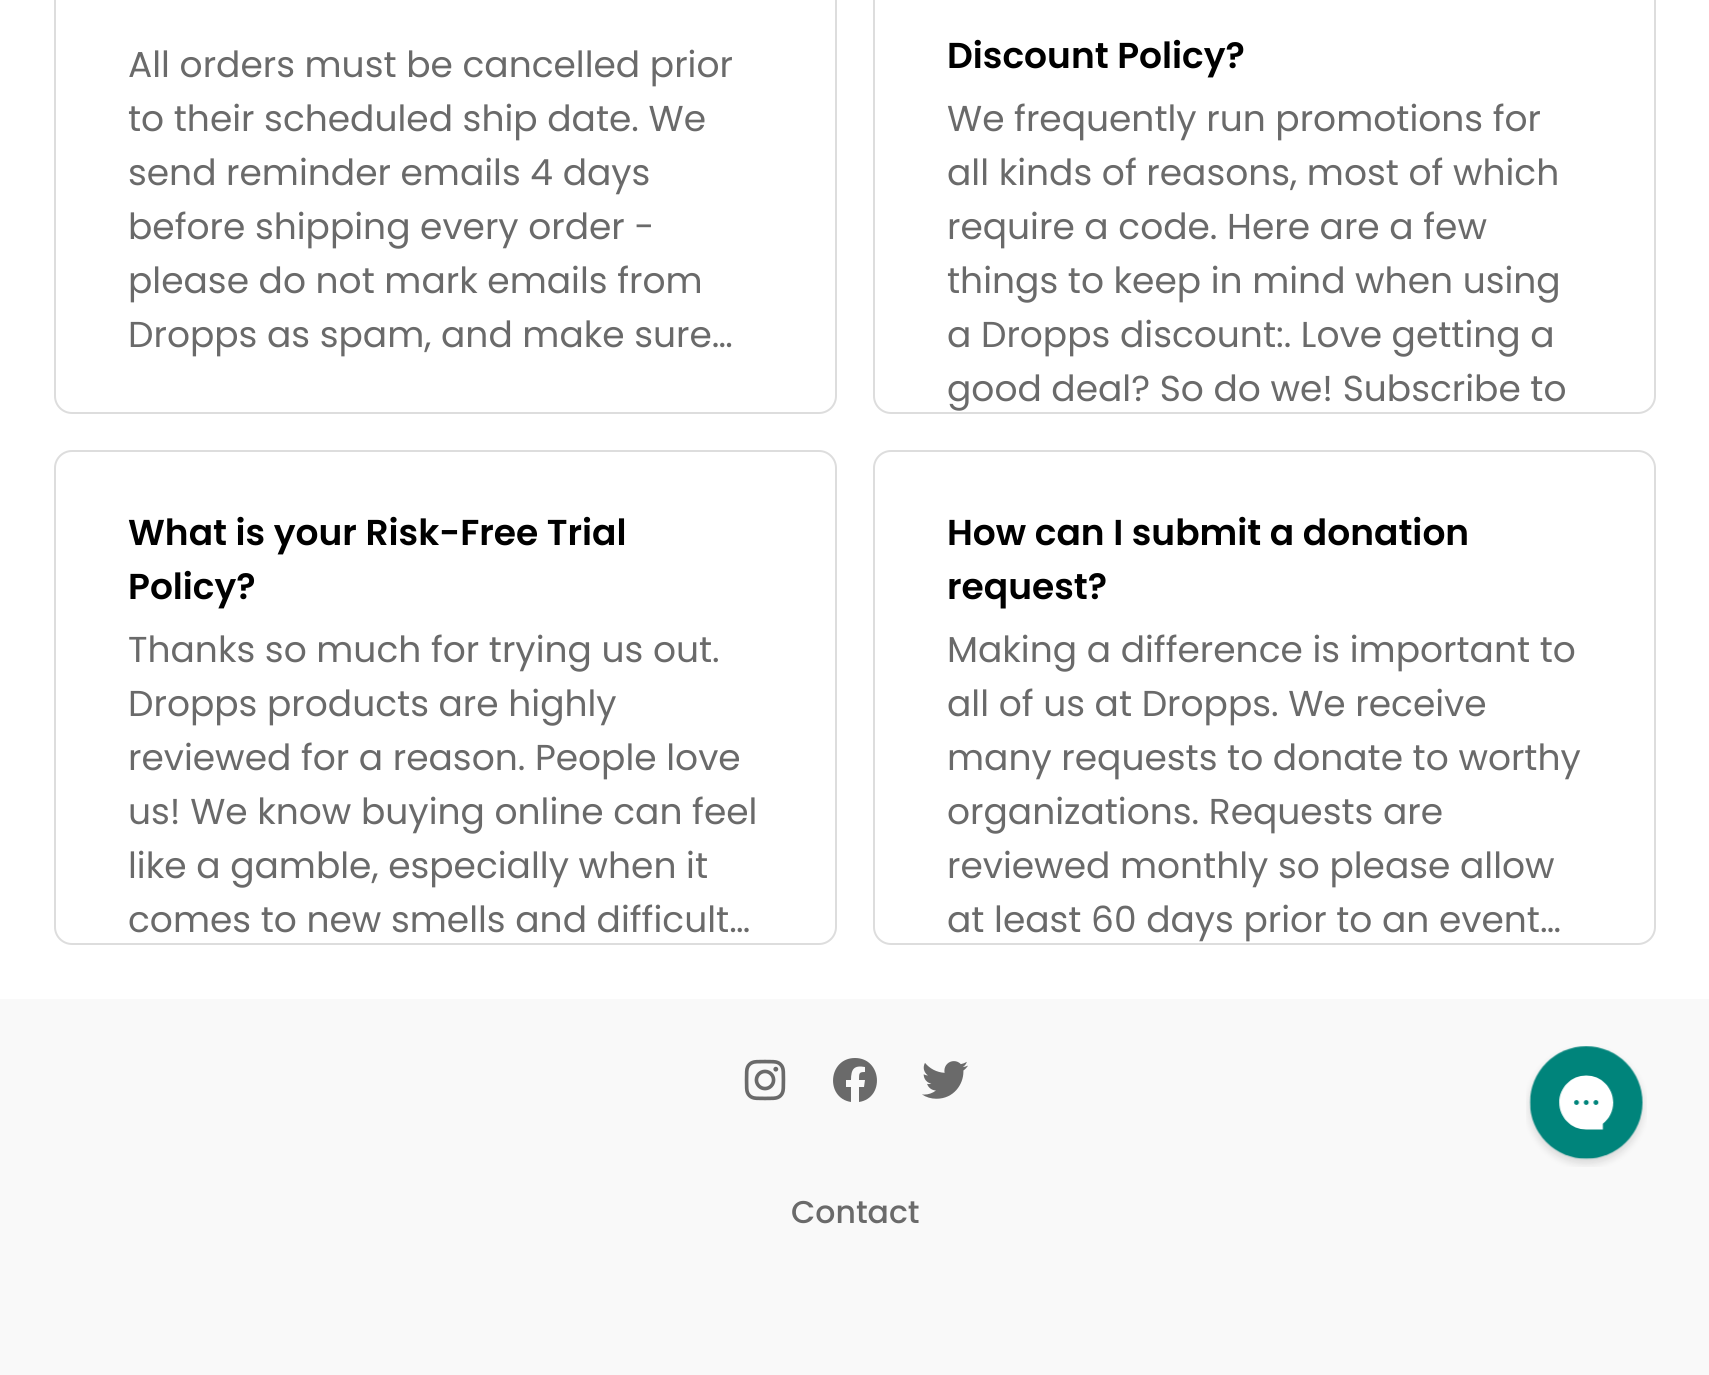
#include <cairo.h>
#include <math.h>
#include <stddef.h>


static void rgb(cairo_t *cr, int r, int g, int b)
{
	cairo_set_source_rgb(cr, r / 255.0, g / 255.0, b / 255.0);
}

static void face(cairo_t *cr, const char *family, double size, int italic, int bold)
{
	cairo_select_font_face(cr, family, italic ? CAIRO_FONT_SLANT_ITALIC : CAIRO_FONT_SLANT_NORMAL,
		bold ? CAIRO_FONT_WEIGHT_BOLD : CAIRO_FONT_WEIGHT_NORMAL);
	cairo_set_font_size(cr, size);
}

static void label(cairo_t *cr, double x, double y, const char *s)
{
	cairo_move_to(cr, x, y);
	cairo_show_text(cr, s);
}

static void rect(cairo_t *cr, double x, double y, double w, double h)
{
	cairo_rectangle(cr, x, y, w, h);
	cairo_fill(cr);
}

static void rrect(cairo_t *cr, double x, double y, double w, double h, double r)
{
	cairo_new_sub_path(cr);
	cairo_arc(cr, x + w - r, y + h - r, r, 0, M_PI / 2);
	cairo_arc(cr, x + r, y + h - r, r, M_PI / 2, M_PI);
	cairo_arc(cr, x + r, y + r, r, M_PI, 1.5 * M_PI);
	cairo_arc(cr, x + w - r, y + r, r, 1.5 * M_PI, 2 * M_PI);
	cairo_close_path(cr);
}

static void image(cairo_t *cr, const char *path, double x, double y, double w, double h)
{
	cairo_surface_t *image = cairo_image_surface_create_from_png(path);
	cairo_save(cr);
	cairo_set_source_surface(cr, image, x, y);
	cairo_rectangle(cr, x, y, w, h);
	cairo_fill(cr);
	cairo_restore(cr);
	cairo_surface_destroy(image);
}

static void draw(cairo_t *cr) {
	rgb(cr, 255, 255, 255);
	cairo_paint(cr);
	rrect(cr, 55, -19, 781, 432, 17);
	rgb(cr, 221, 221, 221);
	cairo_stroke(cr);
	face(cr, "Poppins", 36, 0, 0);
	rgb(cr, 106, 106, 106);
	label(cr, 128, 77, "All orders must be cancelled prior");
	label(cr, 128, 131, "to their scheduled ship date. We");
	label(cr, 128, 185, "send reminder emails 4 days");
	label(cr, 128, 239, "before shipping every order -");
	label(cr, 128, 293, "please do not mark emails from");
	label(cr, 128, 347, "Dropps as spam, and make sure…");
	rrect(cr, 874, -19, 781, 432, 17);
	rgb(cr, 221, 221, 221);
	cairo_stroke(cr);
	face(cr, "Poppins SemiBold", 36, 0, 0);
	rgb(cr, 0, 0, 0);
	label(cr, 947, 68, "Discount Policy?");
	face(cr, "Poppins", 36, 0, 0);
	rgb(cr, 106, 106, 106);
	label(cr, 947, 131, "We frequently run promotions for");
	label(cr, 947, 185, "all kinds of reasons, most of which");
	label(cr, 947, 239, "require a code. Here are a few");
	label(cr, 947, 293, "things to keep in mind when using");
	label(cr, 947, 347, "a Dropps discount:. Love getting a");
	label(cr, 947, 401, "good deal? So do we! Subscribe to");
	rrect(cr, 55, 451, 781, 493, 17);
	rgb(cr, 221, 221, 221);
	cairo_stroke(cr);
	face(cr, "Poppins SemiBold", 36, 0, 0);
	rgb(cr, 0, 0, 0);
	label(cr, 128, 545, "What is your Risk-Free Trial");
	label(cr, 128, 599, "Policy?");
	face(cr, "Poppins", 36, 0, 0);
	rgb(cr, 106, 106, 106);
	label(cr, 128, 662, "Thanks so much for trying us out.");
	label(cr, 128, 716, "Dropps products are highly");
	label(cr, 128, 770, "reviewed for a reason. People love");
	label(cr, 128, 824, "us! We know buying online can feel");
	label(cr, 128, 878, "like a gamble, especially when it");
	label(cr, 128, 932, "comes to new smells and difficult…");
	rrect(cr, 874, 451, 781, 493, 17);
	rgb(cr, 221, 221, 221);
	cairo_stroke(cr);
	face(cr, "Poppins SemiBold", 36, 0, 0);
	rgb(cr, 0, 0, 0);
	label(cr, 947, 545, "How can I submit a donation");
	label(cr, 947, 599, "request?");
	face(cr, "Poppins", 36, 0, 0);
	rgb(cr, 106, 106, 106);
	label(cr, 947, 662, "Making a difference is important to");
	label(cr, 947, 716, "all of us at Dropps. We receive");
	label(cr, 947, 770, "many requests to donate to worthy");
	label(cr, 947, 824, "organizations. Requests are");
	label(cr, 947, 878, "reviewed monthly so please allow");
	label(cr, 947, 932, "at least 60 days prior to an event…");
	rgb(cr, 249, 249, 249);
	rect(cr, 0, 999, 1709, 376);
	image(cr, "image0.png", 744, 1059, 42, 42);
	rgb(cr, 106, 106, 106);
	cairo_new_path(cr);
	cairo_move_to(cr, 855, 1058);
	cairo_curve_to(cr, 882, 1058, 885, 1098, 859, 1102);
	cairo_line_to(cr, 859, 1087);
	cairo_line_to(cr, 864, 1087);
	cairo_line_to(cr, 865, 1080);
	cairo_line_to(cr, 859, 1080);
	cairo_curve_to(cr, 859, 1073, 859, 1072, 865, 1072);
	cairo_line_to(cr, 865, 1067);
	cairo_curve_to(cr, 854, 1065, 851, 1069, 851, 1080);
	cairo_line_to(cr, 846, 1080);
	cairo_line_to(cr, 846, 1087);
	cairo_line_to(cr, 851, 1087);
	cairo_line_to(cr, 851, 1102);
	cairo_curve_to(cr, 825, 1098, 828, 1058, 855, 1058);
	cairo_close_path(cr);
	cairo_fill(cr);
	image(cr, "image1.png", 922, 1061, 46, 38);
	face(cr, "Poppins Medium", 31.5, 0, 0);
	label(cr, 791, 1223, "Contact");
	image(cr, "image2.png", 1526, 1046, 121, 121);
}

int main(void) {
	cairo_surface_t *surface = cairo_image_surface_create(CAIRO_FORMAT_RGB24, 1709, 1375);
	cairo_t *cr = cairo_create(surface);
	cairo_font_options_t *options = cairo_font_options_create();
	cairo_font_options_set_hint_metrics(options, CAIRO_HINT_METRICS_OFF);
	cairo_font_options_set_hint_style(options, CAIRO_HINT_STYLE_NONE);
	cairo_set_font_options(cr, options);
	cairo_set_miter_limit(cr, 4);
	draw(cr);
	cairo_surface_write_to_png(surface, "render.png");
	cairo_font_options_destroy(options);
	cairo_destroy(cr);
	cairo_surface_destroy(surface);
	return 0;
}
